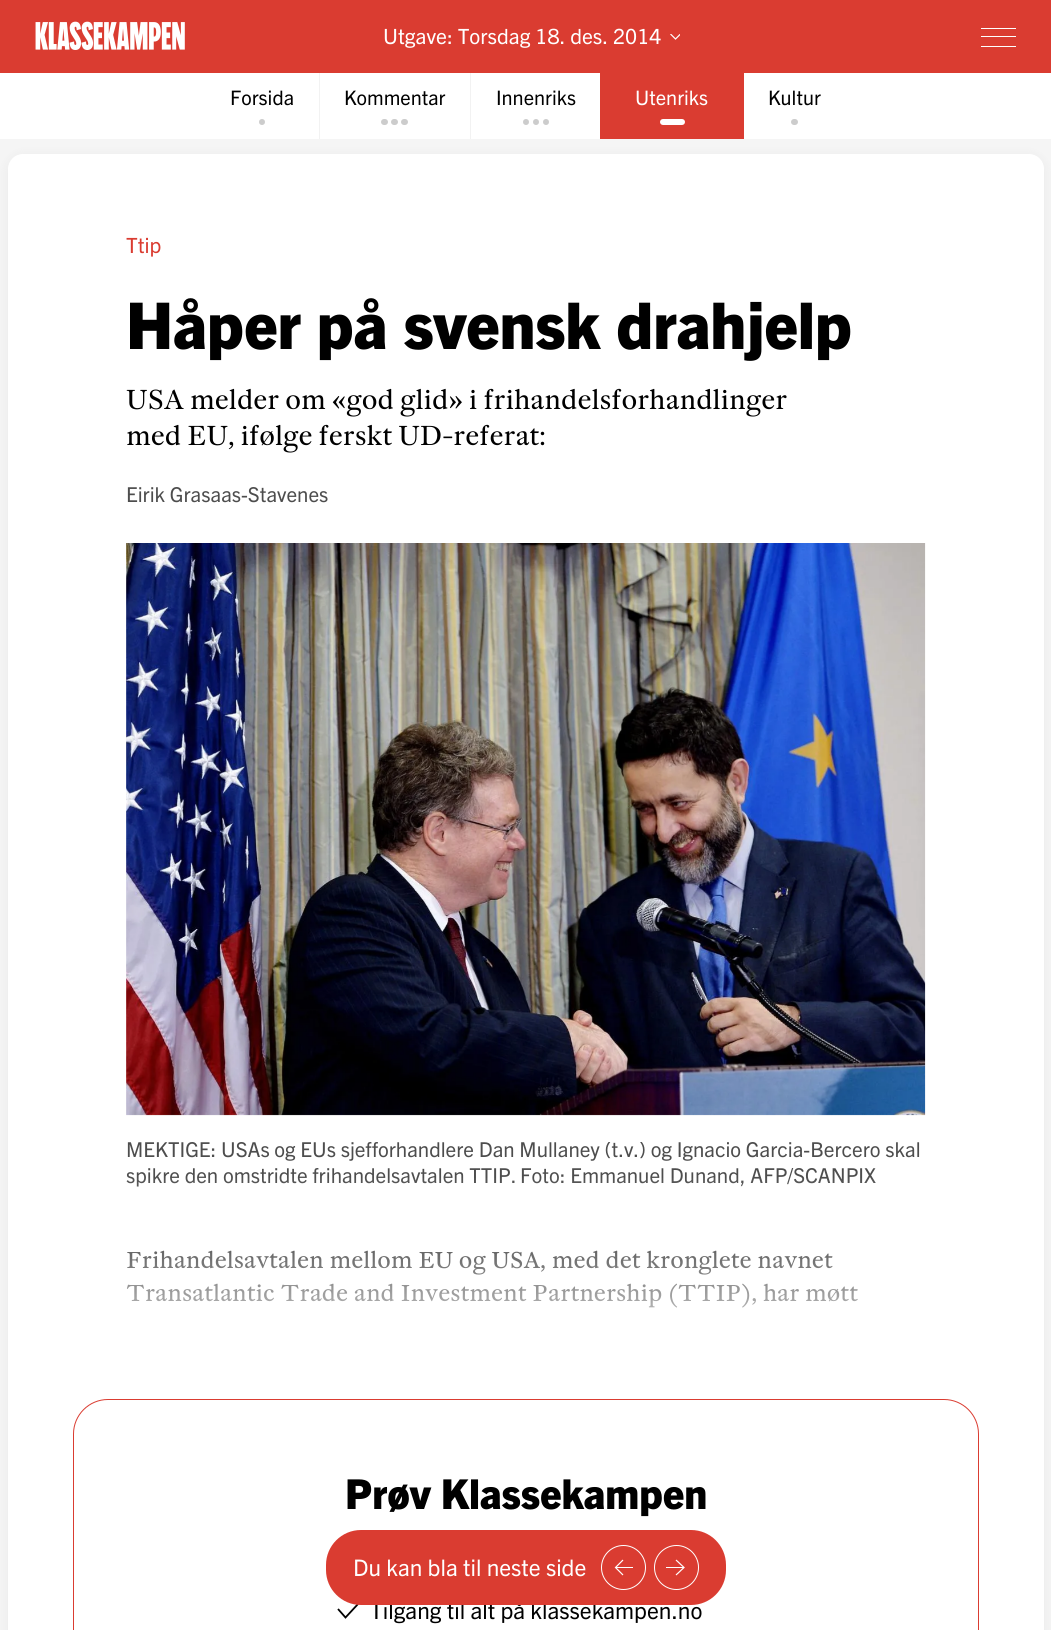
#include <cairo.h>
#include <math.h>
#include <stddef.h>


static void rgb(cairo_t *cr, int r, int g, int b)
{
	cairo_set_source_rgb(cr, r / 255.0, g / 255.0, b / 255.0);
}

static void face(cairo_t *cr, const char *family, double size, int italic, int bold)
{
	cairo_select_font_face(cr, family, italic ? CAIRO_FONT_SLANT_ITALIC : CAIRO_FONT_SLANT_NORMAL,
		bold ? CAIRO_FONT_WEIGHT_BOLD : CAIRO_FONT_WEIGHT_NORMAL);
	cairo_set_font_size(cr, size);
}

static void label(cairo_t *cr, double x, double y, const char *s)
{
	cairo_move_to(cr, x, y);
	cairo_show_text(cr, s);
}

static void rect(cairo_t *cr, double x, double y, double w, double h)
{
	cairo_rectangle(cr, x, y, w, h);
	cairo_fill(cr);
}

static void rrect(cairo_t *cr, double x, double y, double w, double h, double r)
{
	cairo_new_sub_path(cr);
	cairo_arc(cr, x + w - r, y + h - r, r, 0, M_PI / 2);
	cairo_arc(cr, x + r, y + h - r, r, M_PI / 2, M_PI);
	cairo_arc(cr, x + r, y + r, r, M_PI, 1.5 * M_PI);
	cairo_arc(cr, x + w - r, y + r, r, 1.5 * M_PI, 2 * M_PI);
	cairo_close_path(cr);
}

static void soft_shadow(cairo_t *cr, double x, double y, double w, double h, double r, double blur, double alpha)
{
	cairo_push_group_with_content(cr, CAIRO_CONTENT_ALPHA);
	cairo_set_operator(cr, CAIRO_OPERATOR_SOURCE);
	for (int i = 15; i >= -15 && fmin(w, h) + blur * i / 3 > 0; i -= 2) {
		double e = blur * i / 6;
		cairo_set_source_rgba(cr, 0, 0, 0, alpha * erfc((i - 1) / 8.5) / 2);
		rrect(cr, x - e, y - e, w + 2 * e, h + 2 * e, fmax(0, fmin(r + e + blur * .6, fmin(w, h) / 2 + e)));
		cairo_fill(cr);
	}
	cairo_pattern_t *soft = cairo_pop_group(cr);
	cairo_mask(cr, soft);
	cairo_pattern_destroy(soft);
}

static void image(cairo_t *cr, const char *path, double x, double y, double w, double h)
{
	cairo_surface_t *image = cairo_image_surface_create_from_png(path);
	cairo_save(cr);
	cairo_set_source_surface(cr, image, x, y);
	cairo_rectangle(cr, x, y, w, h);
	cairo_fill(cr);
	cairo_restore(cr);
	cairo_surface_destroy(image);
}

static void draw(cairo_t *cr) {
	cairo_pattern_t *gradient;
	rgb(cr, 245, 245, 245);
	cairo_paint(cr);
	rgb(cr, 218, 60, 49);
	rect(cr, 0, 0, 1051, 73);
	image(cr, "image0.png", 35, 21, 150, 29);
	face(cr, "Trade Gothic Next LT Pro", 21, 0, 0);
	rgb(cr, 255, 255, 255);
	label(cr, 383, 44, "Utgave: Torsdag 18. des. 2014");
	cairo_save(cr);
	cairo_rectangle(cr, 670, 34, 10, 7);
	cairo_clip(cr);
	cairo_new_path(cr);
	cairo_move_to(cr, 670.5, 34);
	cairo_line_to(cr, 675.5, 39);
	cairo_line_to(cr, 680.5, 34);
	cairo_set_line_width(cr, 1.2);
	cairo_stroke(cr);
	cairo_restore(cr);
	rect(cr, 981, 28, 35, 1);
	rect(cr, 981, 36, 35, 1);
	rect(cr, 981, 46, 35, 1);
	rgb(cr, 0, 0, 0);
	soft_shadow(cr, 8, 156, 1036, 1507, 15, 6, 0.05);
	rgb(cr, 255, 255, 255);
	rect(cr, 0, 73, 1051, 66);
	face(cr, "Trade Gothic Next LT Pro", 20, 0, 0);
	rgb(cr, 0, 0, 0);
	label(cr, 230, 105, "Forsida");
	rgb(cr, 242, 242, 242);
	rect(cr, 319, 73, 1, 66);
	rgb(cr, 204, 204, 204);
	cairo_new_path(cr);
	cairo_arc(cr, 262, 122, 3, 0, 2 * M_PI);
	cairo_fill(cr);
	rgb(cr, 0, 0, 0);
	label(cr, 344, 105, "Kommentar");
	rgb(cr, 242, 242, 242);
	rect(cr, 470, 73, 1, 66);
	rgb(cr, 204, 204, 204);
	rrect(cr, 381, 119, 7, 6, 3);
	cairo_fill(cr);
	rrect(cr, 391, 119, 7, 6, 3);
	cairo_fill(cr);
	rrect(cr, 401, 119, 7, 6, 3);
	cairo_fill(cr);
	rgb(cr, 0, 0, 0);
	label(cr, 496, 105, "Innenriks");
	rgb(cr, 204, 204, 204);
	cairo_new_path(cr);
	cairo_arc(cr, 526, 122, 3, 0, 2 * M_PI);
	cairo_fill(cr);
	cairo_arc(cr, 536, 122, 3, 0, 2 * M_PI);
	cairo_fill(cr);
	cairo_arc(cr, 546, 122, 3, 0, 2 * M_PI);
	cairo_fill(cr);
	rgb(cr, 218, 60, 49);
	rect(cr, 600, 73, 144, 66);
	rgb(cr, 255, 255, 255);
	label(cr, 635, 105, "Utenriks");
	rrect(cr, 660, 119, 25, 6, 3);
	cairo_fill(cr);
	rgb(cr, 0, 0, 0);
	label(cr, 768, 105, "Kultur");
	rgb(cr, 204, 204, 204);
	rrect(cr, 791, 119, 7, 6, 3);
	cairo_fill(cr);
	rgb(cr, 255, 255, 255);
	rrect(cr, 8, 154, 1036, 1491, 15);
	cairo_fill(cr);
	face(cr, "Trade Gothic Next LT Pro", 21, 0, 0);
	rgb(cr, 218, 60, 49);
	label(cr, 126, 253, "Ttip");
	face(cr, "Trade Gothic Next LT Pro ExtraBold", 64.5, 0, 0);
	rgb(cr, 0, 0, 0);
	label(cr, 126, 349, "Håper på svensk drahjelp");
	face(cr, "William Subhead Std", 27.3, 0, 0);
	label(cr, 126, 409, "USA melder om «god glid» i frihandelsforhandlinger");
	label(cr, 126, 445, "med EU, ifølge ferskt UD-referat:");
	face(cr, "Trade Gothic Next LT Pro", 20.55, 0, 0);
	rgb(cr, 77, 77, 77);
	label(cr, 126, 502, "Eirik Grasaas-Stavenes");
	image(cr, "image1.png", 126, 543, 800, 573);
	label(cr, 126, 1157, "MEKTIGE: USAs og EUs sjefforhandlere Dan Mullaney (t.v.) og Ignacio Garcia-Bercero skal");
	label(cr, 126, 1183, "spikre den omstridte frihandelsavtalen TTIP.");
	label(cr, 520, 1183, "Foto: Emmanuel Dunand, AFP/SCANPIX");
	face(cr, "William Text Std", 22.85, 0, 0);
	rgb(cr, 0, 0, 0);
	label(cr, 126, 1268, "Frihandelsavtalen mellom EU og USA, med det kronglete navnet");
	label(cr, 126, 1301, "Transatlantic Trade and Investment Partnership (TTIP), har møtt");
	rrect(cr, 73.5, 1399.5, 905, 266, 34.5);
	rgb(cr, 218, 60, 49);
	cairo_set_line_width(cr, 1);
	cairo_stroke(cr);
	gradient = cairo_pattern_create_linear(526, 1174, 526, 1399);
	cairo_pattern_add_color_stop_rgba(gradient, 0, 1, 1, 1, 0);
	cairo_pattern_add_color_stop_rgba(gradient, 0.86, 1, 1, 1, 1);
	cairo_set_source(cr, gradient);
	cairo_pattern_destroy(gradient);
	rect(cr, 126, 1178, 749, 130);
	face(cr, "Trade Gothic Next LT Pro ExtraBold", 41.25, 0, 0);
	rgb(cr, 0, 0, 0);
	label(cr, 345, 1509, "Prøv Klassekampen");
	cairo_new_path(cr);
	cairo_move_to(cr, 338, 1609);
	cairo_line_to(cr, 345.5, 1617.5);
	cairo_line_to(cr, 358, 1604);
	cairo_set_line_width(cr, 1.8);
	cairo_stroke(cr);
	face(cr, "Trade Gothic Next LT Pro", 22.85, 0, 0);
	label(cr, 370, 1619, "Tilgang til alt på klassekampen.no");
	rgb(cr, 218, 60, 49);
	rrect(cr, 326, 1530, 400, 75, 35);
	cairo_fill(cr);
	rgb(cr, 255, 255, 255);
	label(cr, 353, 1576, "Du kan bla til neste side");
	cairo_new_path(cr);
	cairo_arc(cr, 623.5, 1567.5, 22, 0, 2 * M_PI);
	cairo_set_line_width(cr, 1);
	cairo_stroke(cr);
	rect(cr, 616, 1567, 17, 1);
	cairo_new_path(cr);
	cairo_move_to(cr, 623, 1575);
	cairo_line_to(cr, 615.5, 1567.5);
	cairo_line_to(cr, 623, 1560);
	cairo_set_line_width(cr, 1.2);
	cairo_stroke(cr);
	cairo_arc(cr, 676.5, 1567.5, 22, 0, 2 * M_PI);
	cairo_set_line_width(cr, 1);
	cairo_stroke(cr);
	rect(cr, 666, 1567, 18, 1);
	cairo_new_path(cr);
	cairo_move_to(cr, 676, 1560);
	cairo_line_to(cr, 684, 1567.5);
	cairo_line_to(cr, 676, 1575);
	cairo_set_line_width(cr, 1.2);
	cairo_stroke(cr);
}

int main(void) {
	cairo_surface_t *surface = cairo_image_surface_create(CAIRO_FORMAT_RGB24, 1051, 1630);
	cairo_t *cr = cairo_create(surface);
	cairo_font_options_t *options = cairo_font_options_create();
	cairo_font_options_set_hint_metrics(options, CAIRO_HINT_METRICS_OFF);
	cairo_font_options_set_hint_style(options, CAIRO_HINT_STYLE_NONE);
	cairo_set_font_options(cr, options);
	cairo_set_miter_limit(cr, 4);
	draw(cr);
	cairo_surface_write_to_png(surface, "render.png");
	cairo_font_options_destroy(options);
	cairo_destroy(cr);
	cairo_surface_destroy(surface);
	return 0;
}
